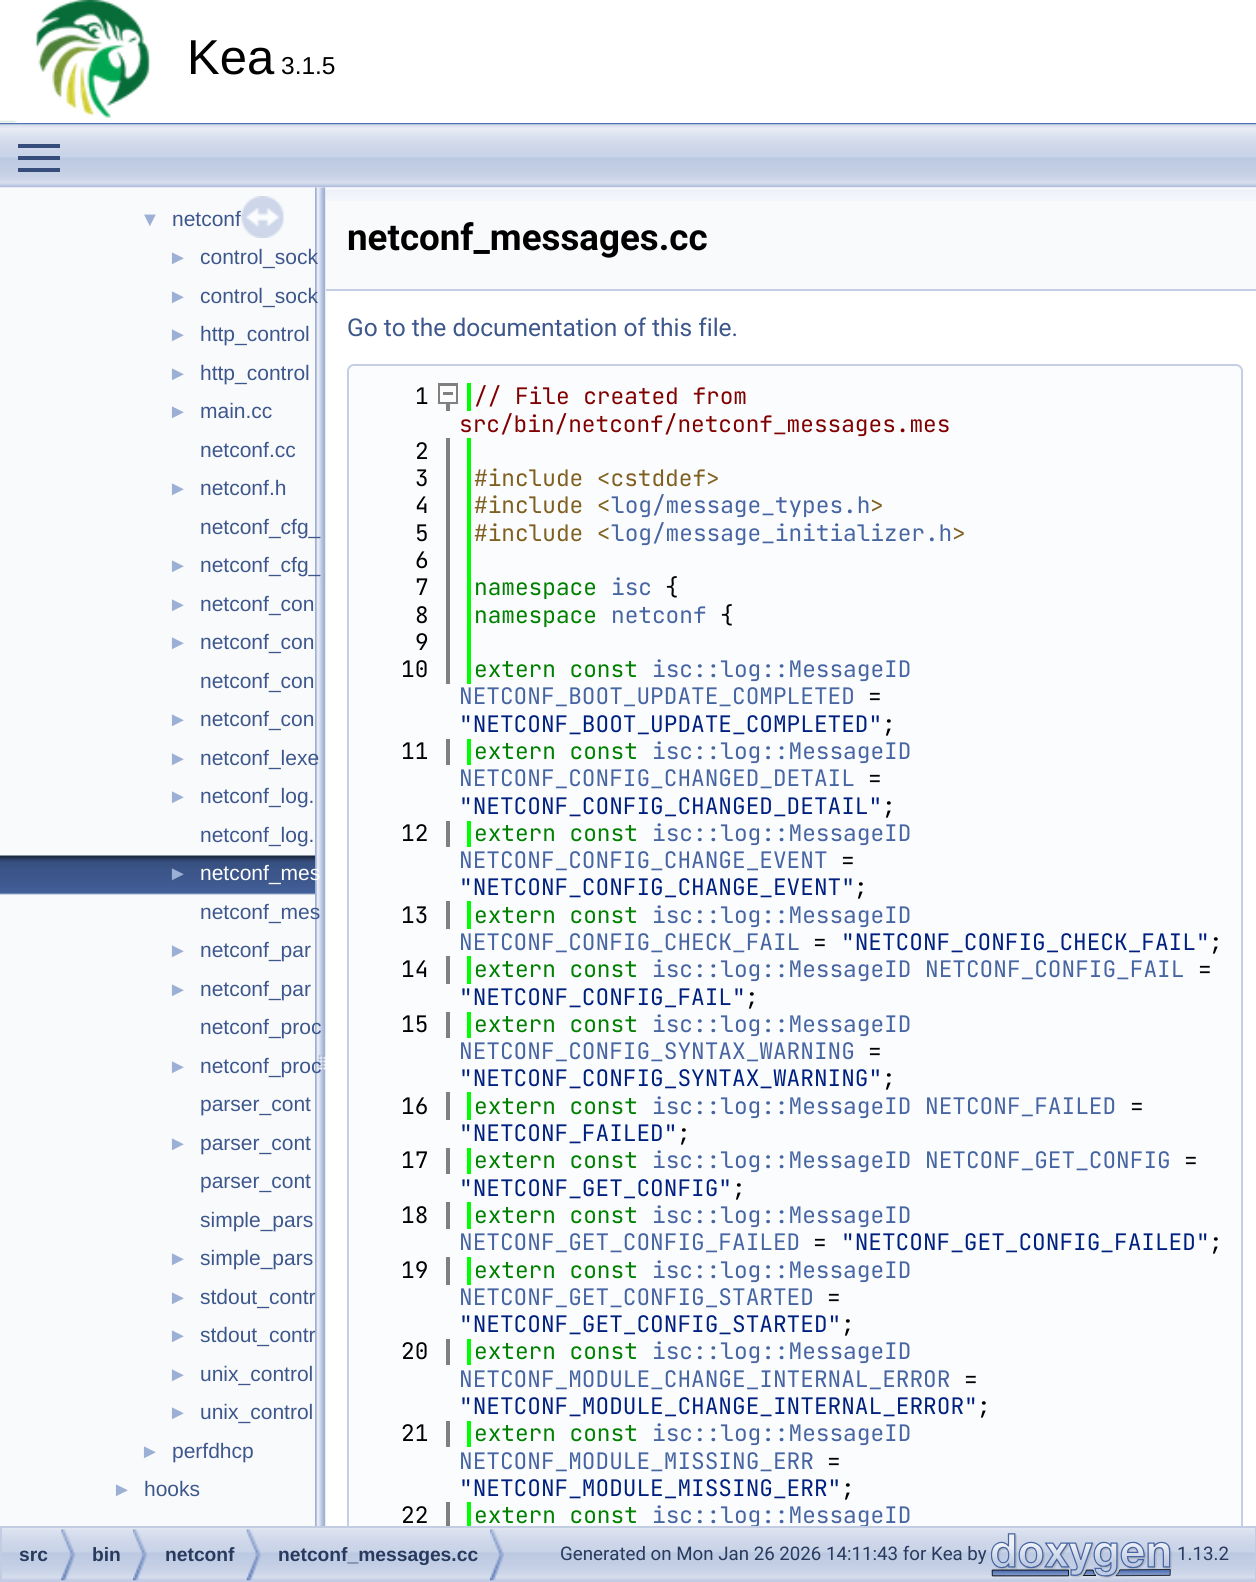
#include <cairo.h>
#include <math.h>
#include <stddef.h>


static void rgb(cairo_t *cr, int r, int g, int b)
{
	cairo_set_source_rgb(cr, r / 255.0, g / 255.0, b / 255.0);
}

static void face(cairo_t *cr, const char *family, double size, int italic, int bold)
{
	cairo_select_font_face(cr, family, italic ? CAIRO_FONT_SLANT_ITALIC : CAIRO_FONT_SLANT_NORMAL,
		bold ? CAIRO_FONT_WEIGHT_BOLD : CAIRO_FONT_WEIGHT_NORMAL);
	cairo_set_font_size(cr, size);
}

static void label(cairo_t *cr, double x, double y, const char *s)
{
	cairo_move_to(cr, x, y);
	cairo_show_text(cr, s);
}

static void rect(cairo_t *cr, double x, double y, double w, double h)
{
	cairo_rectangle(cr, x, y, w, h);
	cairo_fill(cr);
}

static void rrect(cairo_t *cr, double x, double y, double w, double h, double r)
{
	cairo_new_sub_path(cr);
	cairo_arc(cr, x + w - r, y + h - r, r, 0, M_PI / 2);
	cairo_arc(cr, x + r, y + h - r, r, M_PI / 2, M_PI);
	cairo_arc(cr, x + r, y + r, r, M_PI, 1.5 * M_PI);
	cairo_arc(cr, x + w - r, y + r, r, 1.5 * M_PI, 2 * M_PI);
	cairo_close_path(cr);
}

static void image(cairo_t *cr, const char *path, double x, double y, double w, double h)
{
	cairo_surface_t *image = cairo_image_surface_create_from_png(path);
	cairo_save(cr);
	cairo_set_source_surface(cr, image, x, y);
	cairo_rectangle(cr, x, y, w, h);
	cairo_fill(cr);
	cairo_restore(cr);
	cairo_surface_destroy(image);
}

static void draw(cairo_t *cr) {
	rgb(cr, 255, 255, 255);
	cairo_paint(cr);
	rgb(cr, 83, 115, 180);
	rect(cr, 0, 123, 1256, 2);
	image(cr, "image0.png", 0, 0, 151, 123);
	face(cr, "Liberation Sans", 49, 0, 0);
	rgb(cr, 0, 0, 0);
	label(cr, 187, 74, "Kea");
	face(cr, "Liberation Sans", 24.5, 0, 0);
	label(cr, 281, 74, "3.1.5");
	rgb(cr, 249, 250, 252);
	rect(cr, 0, 187, 315, 1339);
	rect(cr, 326, 187, 930, 102);
	image(cr, "image5.png", 325, 189, 931, 12);
	image(cr, "image4.png", 315, 187, 11, 1339);
	image(cr, "image1.png", 0, 124, 1256, 64);
	rgb(cr, 54, 77, 124);
	rect(cr, 18, 156, 42, 4);
	rect(cr, 18, 144, 42, 4);
	rect(cr, 18, 168, 42, 4);
	image(cr, "image2.png", 241, 196, 43, 42);
	face(cr, "Liberation Sans", 20, 0, 0);
	rgb(cr, 156, 175, 212);
	label(cr, 140, 226, "▼");
	face(cr, "Liberation Sans", 21, 0, 0);
	rgb(cr, 61, 87, 140);
	label(cr, 172, 226, "netconf");
	face(cr, "Liberation Sans", 20, 0, 0);
	rgb(cr, 156, 175, 212);
	label(cr, 168, 264, "►");
	face(cr, "Liberation Sans", 21, 0, 0);
	rgb(cr, 61, 87, 140);
	label(cr, 200, 264, "control_sock");
	face(cr, "Liberation Sans", 20, 0, 0);
	rgb(cr, 156, 175, 212);
	label(cr, 168, 303, "►");
	face(cr, "Liberation Sans", 21, 0, 0);
	rgb(cr, 61, 87, 140);
	label(cr, 200, 303, "control_sock");
	face(cr, "Liberation Sans", 20, 0, 0);
	rgb(cr, 156, 175, 212);
	label(cr, 168, 341, "►");
	face(cr, "Liberation Sans", 21, 0, 0);
	rgb(cr, 61, 87, 140);
	label(cr, 200, 341, "http_control");
	face(cr, "Liberation Sans", 20, 0, 0);
	rgb(cr, 156, 175, 212);
	label(cr, 168, 380, "►");
	face(cr, "Liberation Sans", 21, 0, 0);
	rgb(cr, 61, 87, 140);
	label(cr, 200, 380, "http_control");
	face(cr, "Liberation Sans", 20, 0, 0);
	rgb(cr, 156, 175, 212);
	label(cr, 168, 418, "►");
	face(cr, "Liberation Sans", 21, 0, 0);
	rgb(cr, 61, 87, 140);
	label(cr, 200, 418, "main.cc");
	label(cr, 200, 457, "netconf.cc");
	face(cr, "Liberation Sans", 20, 0, 0);
	rgb(cr, 156, 175, 212);
	label(cr, 168, 495, "►");
	face(cr, "Liberation Sans", 21, 0, 0);
	rgb(cr, 61, 87, 140);
	label(cr, 200, 495, "netconf.h");
	label(cr, 200, 534, "netconf_cfg_");
	face(cr, "Liberation Sans", 20, 0, 0);
	rgb(cr, 156, 175, 212);
	label(cr, 168, 572, "►");
	face(cr, "Liberation Sans", 21, 0, 0);
	rgb(cr, 61, 87, 140);
	label(cr, 200, 572, "netconf_cfg_");
	face(cr, "Liberation Sans", 20, 0, 0);
	rgb(cr, 156, 175, 212);
	label(cr, 168, 611, "►");
	face(cr, "Liberation Sans", 21, 0, 0);
	rgb(cr, 61, 87, 140);
	label(cr, 200, 611, "netconf_con");
	face(cr, "Liberation Sans", 20, 0, 0);
	rgb(cr, 156, 175, 212);
	label(cr, 168, 649, "►");
	face(cr, "Liberation Sans", 21, 0, 0);
	rgb(cr, 61, 87, 140);
	label(cr, 200, 649, "netconf_con");
	label(cr, 200, 688, "netconf_con");
	face(cr, "Liberation Sans", 20, 0, 0);
	rgb(cr, 156, 175, 212);
	label(cr, 168, 726, "►");
	face(cr, "Liberation Sans", 21, 0, 0);
	rgb(cr, 61, 87, 140);
	label(cr, 200, 726, "netconf_con");
	face(cr, "Liberation Sans", 20, 0, 0);
	rgb(cr, 156, 175, 212);
	label(cr, 168, 765, "►");
	face(cr, "Liberation Sans", 21, 0, 0);
	rgb(cr, 61, 87, 140);
	label(cr, 200, 765, "netconf_lexe");
	face(cr, "Liberation Sans", 20, 0, 0);
	rgb(cr, 156, 175, 212);
	label(cr, 168, 803, "►");
	face(cr, "Liberation Sans", 21, 0, 0);
	rgb(cr, 61, 87, 140);
	label(cr, 200, 803, "netconf_log.");
	label(cr, 200, 842, "netconf_log.");
	image(cr, "image3.png", 0, 855, 315, 40);
	face(cr, "Liberation Sans", 20, 0, 0);
	rgb(cr, 156, 175, 212);
	label(cr, 168, 880, "►");
	face(cr, "Liberation Sans", 21, 0, 0);
	rgb(cr, 255, 255, 255);
	label(cr, 200, 880, "netconf_mes");
	rgb(cr, 61, 87, 140);
	label(cr, 200, 919, "netconf_mes");
	face(cr, "Liberation Sans", 20, 0, 0);
	rgb(cr, 156, 175, 212);
	label(cr, 168, 957, "►");
	face(cr, "Liberation Sans", 21, 0, 0);
	rgb(cr, 61, 87, 140);
	label(cr, 200, 957, "netconf_par");
	face(cr, "Liberation Sans", 20, 0, 0);
	rgb(cr, 156, 175, 212);
	label(cr, 168, 996, "►");
	face(cr, "Liberation Sans", 21, 0, 0);
	rgb(cr, 61, 87, 140);
	label(cr, 200, 996, "netconf_par");
	label(cr, 200, 1034, "netconf_proc");
	face(cr, "Liberation Sans", 20, 0, 0);
	rgb(cr, 156, 175, 212);
	label(cr, 168, 1073, "►");
	face(cr, "Liberation Sans", 21, 0, 0);
	rgb(cr, 61, 87, 140);
	label(cr, 200, 1073, "netconf_proc");
	label(cr, 200, 1111, "parser_cont");
	face(cr, "Liberation Sans", 20, 0, 0);
	rgb(cr, 156, 175, 212);
	label(cr, 168, 1150, "►");
	face(cr, "Liberation Sans", 21, 0, 0);
	rgb(cr, 61, 87, 140);
	label(cr, 200, 1150, "parser_cont");
	label(cr, 200, 1188, "parser_cont");
	label(cr, 200, 1227, "simple_pars");
	face(cr, "Liberation Sans", 20, 0, 0);
	rgb(cr, 156, 175, 212);
	label(cr, 168, 1265, "►");
	face(cr, "Liberation Sans", 21, 0, 0);
	rgb(cr, 61, 87, 140);
	label(cr, 200, 1265, "simple_pars");
	face(cr, "Liberation Sans", 20, 0, 0);
	rgb(cr, 156, 175, 212);
	label(cr, 168, 1304, "►");
	face(cr, "Liberation Sans", 21, 0, 0);
	rgb(cr, 61, 87, 140);
	label(cr, 200, 1304, "stdout_contr");
	face(cr, "Liberation Sans", 20, 0, 0);
	rgb(cr, 156, 175, 212);
	label(cr, 168, 1342, "►");
	face(cr, "Liberation Sans", 21, 0, 0);
	rgb(cr, 61, 87, 140);
	label(cr, 200, 1342, "stdout_contr");
	face(cr, "Liberation Sans", 20, 0, 0);
	rgb(cr, 156, 175, 212);
	label(cr, 168, 1381, "►");
	face(cr, "Liberation Sans", 21, 0, 0);
	rgb(cr, 61, 87, 140);
	label(cr, 200, 1381, "unix_control");
	face(cr, "Liberation Sans", 20, 0, 0);
	rgb(cr, 156, 175, 212);
	label(cr, 168, 1419, "►");
	face(cr, "Liberation Sans", 21, 0, 0);
	rgb(cr, 61, 87, 140);
	label(cr, 200, 1419, "unix_control");
	face(cr, "Liberation Sans", 20, 0, 0);
	rgb(cr, 156, 175, 212);
	label(cr, 140, 1458, "►");
	face(cr, "Liberation Sans", 21, 0, 0);
	rgb(cr, 61, 87, 140);
	label(cr, 172, 1458, "perfdhcp");
	face(cr, "Liberation Sans", 20, 0, 0);
	rgb(cr, 156, 175, 212);
	label(cr, 112, 1496, "►");
	face(cr, "Liberation Sans", 21, 0, 0);
	rgb(cr, 61, 87, 140);
	label(cr, 144, 1496, "hooks");
	rgb(cr, 196, 207, 229);
	rect(cr, 326, 289, 930, 2);
	face(cr, "Roboto", 36.75, 0, 1);
	rgb(cr, 0, 0, 0);
	label(cr, 347, 250, "netconf_messages.cc");
	face(cr, "Roboto", 24.5, 0, 0);
	rgb(cr, 61, 87, 140);
	label(cr, 347, 336, "Go to the documentation of this file.");
	rgb(cr, 251, 252, 253);
	cairo_new_path(cr);
	cairo_move_to(cr, 354, 364);
	cairo_line_to(cr, 1236, 364);
	cairo_curve_to(cr, 1240, 364, 1243, 367, 1243, 371);
	cairo_line_to(cr, 1243, 1526);
	cairo_line_to(cr, 347, 1526);
	cairo_line_to(cr, 347, 371);
	cairo_curve_to(cr, 347, 367, 350, 364, 354, 364);
	cairo_close_path(cr);
	cairo_fill(cr);
	image(cr, "image6.png", 2, 1528, 1253, 52);
	cairo_rectangle(cr, 1, 1527, 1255, 54);
	rgb(cr, 194, 205, 228);
	cairo_stroke(cr);
	image(cr, "image8.png", 490, 1529, 14, 52);
	face(cr, "Liberation Sans", 19.25, 0, 1);
	rgb(cr, 40, 58, 93);
	label(cr, 278, 1561, "netconf_messages.cc");
	image(cr, "image10.png", 991, 1533, 181, 46);
	cairo_save(cr);
	cairo_rectangle(cr, 326, 187, 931, 1339);
	cairo_clip(cr);
	rrect(cr, 348, 365, 894, 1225, 6);
	rgb(cr, 196, 207, 229);
	cairo_stroke(cr);
	cairo_restore(cr);
	rgb(cr, 128, 128, 128);
	rect(cr, 446, 404, 4, 7);
	rgb(cr, 0, 255, 0);
	rect(cr, 467, 383, 4, 28);
	face(cr, "JetBrains Mono", 22.75, 0, 0);
	rgb(cr, 0, 0, 0);
	label(cr, 415, 404, "1");
	rgb(cr, 128, 128, 128);
	rect(cr, 438, 383, 20, 21);
	rgb(cr, 252, 252, 252);
	rect(cr, 440, 386, 16, 16);
	rgb(cr, 128, 128, 128);
	rect(cr, 443, 392, 10, 3);
	rgb(cr, 128, 0, 0);
	label(cr, 474, 404, "// File created from");
	label(cr, 459, 432, "src/bin/netconf/netconf_messages.mes");
	rgb(cr, 128, 128, 128);
	rect(cr, 446, 438, 4, 246);
	rgb(cr, 0, 255, 0);
	rect(cr, 467, 438, 4, 246);
	rgb(cr, 0, 0, 0);
	label(cr, 415, 459, "2");
	label(cr, 415, 486, "3");
	rgb(cr, 128, 96, 32);
	label(cr, 474, 486, "#include <cstddef>");
	rgb(cr, 0, 0, 0);
	label(cr, 415, 513, "4");
	rgb(cr, 128, 96, 32);
	label(cr, 474, 513, "#include <");
	rgb(cr, 70, 101, 162);
	label(cr, 611, 513, "log/message_types.h");
	rgb(cr, 128, 96, 32);
	label(cr, 870, 513, ">");
	rgb(cr, 0, 0, 0);
	label(cr, 415, 541, "5");
	rgb(cr, 128, 96, 32);
	label(cr, 474, 541, "#include <");
	rgb(cr, 70, 101, 162);
	label(cr, 611, 541, "log/message_initializer.h");
	rgb(cr, 128, 96, 32);
	label(cr, 952, 541, ">");
	rgb(cr, 0, 0, 0);
	label(cr, 415, 568, "6");
	label(cr, 415, 595, "7");
	rgb(cr, 0, 128, 0);
	label(cr, 474, 595, "namespace");
	rgb(cr, 70, 101, 162);
	label(cr, 611, 595, "isc");
	rgb(cr, 0, 0, 0);
	label(cr, 665, 595, "{");
	label(cr, 415, 623, "8");
	rgb(cr, 0, 128, 0);
	label(cr, 474, 623, "namespace");
	rgb(cr, 70, 101, 162);
	label(cr, 611, 623, "netconf");
	rgb(cr, 0, 0, 0);
	label(cr, 720, 623, "{");
	label(cr, 415, 650, "9");
	label(cr, 401, 677, "10");
	rgb(cr, 0, 128, 0);
	label(cr, 474, 677, "extern const");
	rgb(cr, 70, 101, 162);
	label(cr, 652, 677, "isc::log::MessageID");
	label(cr, 459, 704, "NETCONF_BOOT_UPDATE_COMPLETED");
	rgb(cr, 0, 0, 0);
	label(cr, 868, 704, "=");
	rgb(cr, 0, 32, 128);
	label(cr, 459, 732, "\"NETCONF_BOOT_UPDATE_COMPLETED\"");
	rgb(cr, 0, 0, 0);
	label(cr, 882, 732, ";");
	rgb(cr, 128, 128, 128);
	rect(cr, 446, 739, 4, 26);
	rgb(cr, 0, 255, 0);
	rect(cr, 467, 739, 4, 26);
	rgb(cr, 0, 0, 0);
	label(cr, 401, 759, "11");
	rgb(cr, 0, 128, 0);
	label(cr, 474, 759, "extern const");
	rgb(cr, 70, 101, 162);
	label(cr, 652, 759, "isc::log::MessageID");
	label(cr, 459, 786, "NETCONF_CONFIG_CHANGED_DETAIL");
	rgb(cr, 0, 0, 0);
	label(cr, 868, 786, "=");
	rgb(cr, 0, 32, 128);
	label(cr, 459, 814, "\"NETCONF_CONFIG_CHANGED_DETAIL\"");
	rgb(cr, 0, 0, 0);
	label(cr, 882, 814, ";");
	rgb(cr, 128, 128, 128);
	rect(cr, 446, 821, 4, 26);
	rgb(cr, 0, 255, 0);
	rect(cr, 467, 821, 4, 26);
	rgb(cr, 0, 0, 0);
	label(cr, 401, 841, "12");
	rgb(cr, 0, 128, 0);
	label(cr, 474, 841, "extern const");
	rgb(cr, 70, 101, 162);
	label(cr, 652, 841, "isc::log::MessageID");
	label(cr, 459, 868, "NETCONF_CONFIG_CHANGE_EVENT");
	rgb(cr, 0, 0, 0);
	label(cr, 841, 868, "=");
	rgb(cr, 0, 32, 128);
	label(cr, 459, 895, "\"NETCONF_CONFIG_CHANGE_EVENT\"");
	rgb(cr, 0, 0, 0);
	label(cr, 854, 895, ";");
	rgb(cr, 128, 128, 128);
	rect(cr, 446, 901, 4, 28);
	rgb(cr, 0, 255, 0);
	rect(cr, 467, 901, 4, 28);
	rgb(cr, 0, 0, 0);
	label(cr, 401, 923, "13");
	rgb(cr, 0, 128, 0);
	label(cr, 474, 923, "extern const");
	rgb(cr, 70, 101, 162);
	label(cr, 652, 923, "isc::log::MessageID");
	label(cr, 459, 950, "NETCONF_CONFIG_CHECK_FAIL");
	rgb(cr, 0, 0, 0);
	label(cr, 813, 950, "=");
	rgb(cr, 0, 32, 128);
	label(cr, 841, 950, "\"NETCONF_CONFIG_CHECK_FAIL\"");
	rgb(cr, 0, 0, 0);
	label(cr, 1209, 950, ";");
	rgb(cr, 128, 128, 128);
	rect(cr, 446, 956, 4, 28);
	rgb(cr, 0, 255, 0);
	rect(cr, 467, 956, 4, 28);
	rgb(cr, 0, 0, 0);
	label(cr, 401, 977, "14");
	rgb(cr, 0, 128, 0);
	label(cr, 474, 977, "extern const");
	rgb(cr, 70, 101, 162);
	label(cr, 652, 977, "isc::log::MessageID NETCONF_CONFIG_FAIL");
	rgb(cr, 0, 0, 0);
	label(cr, 1198, 977, "=");
	rgb(cr, 0, 32, 128);
	label(cr, 459, 1005, "\"NETCONF_CONFIG_FAIL\"");
	rgb(cr, 0, 0, 0);
	label(cr, 745, 1005, ";");
	rgb(cr, 128, 128, 128);
	rect(cr, 446, 1012, 4, 26);
	rgb(cr, 0, 255, 0);
	rect(cr, 467, 1012, 4, 26);
	rgb(cr, 0, 0, 0);
	label(cr, 401, 1032, "15");
	rgb(cr, 0, 128, 0);
	label(cr, 474, 1032, "extern const");
	rgb(cr, 70, 101, 162);
	label(cr, 652, 1032, "isc::log::MessageID");
	label(cr, 459, 1059, "NETCONF_CONFIG_SYNTAX_WARNING");
	rgb(cr, 0, 0, 0);
	label(cr, 868, 1059, "=");
	rgb(cr, 0, 32, 128);
	label(cr, 459, 1086, "\"NETCONF_CONFIG_SYNTAX_WARNING\"");
	rgb(cr, 0, 0, 0);
	label(cr, 882, 1086, ";");
	rgb(cr, 128, 128, 128);
	rect(cr, 446, 1092, 4, 28);
	rgb(cr, 0, 255, 0);
	rect(cr, 467, 1092, 4, 28);
	rgb(cr, 0, 0, 0);
	label(cr, 401, 1114, "16");
	rgb(cr, 0, 128, 0);
	label(cr, 474, 1114, "extern const");
	rgb(cr, 70, 101, 162);
	label(cr, 652, 1114, "isc::log::MessageID NETCONF_FAILED");
	rgb(cr, 0, 0, 0);
	label(cr, 1130, 1114, "=");
	rgb(cr, 0, 32, 128);
	label(cr, 459, 1141, "\"NETCONF_FAILED\"");
	rgb(cr, 0, 0, 0);
	label(cr, 677, 1141, ";");
	rgb(cr, 128, 128, 128);
	rect(cr, 446, 1148, 4, 26);
	rgb(cr, 0, 255, 0);
	rect(cr, 467, 1148, 4, 26);
	rgb(cr, 0, 0, 0);
	label(cr, 401, 1168, "17");
	rgb(cr, 0, 128, 0);
	label(cr, 474, 1168, "extern const");
	rgb(cr, 70, 101, 162);
	label(cr, 652, 1168, "isc::log::MessageID NETCONF_GET_CONFIG");
	rgb(cr, 0, 0, 0);
	label(cr, 1184, 1168, "=");
	rgb(cr, 0, 32, 128);
	label(cr, 459, 1196, "\"NETCONF_GET_CONFIG\"");
	rgb(cr, 0, 0, 0);
	label(cr, 732, 1196, ";");
	rgb(cr, 128, 128, 128);
	rect(cr, 446, 1202, 4, 27);
	rgb(cr, 0, 255, 0);
	rect(cr, 467, 1202, 4, 27);
	rgb(cr, 0, 0, 0);
	label(cr, 401, 1223, "18");
	rgb(cr, 0, 128, 0);
	label(cr, 474, 1223, "extern const");
	rgb(cr, 70, 101, 162);
	label(cr, 652, 1223, "isc::log::MessageID");
	label(cr, 459, 1250, "NETCONF_GET_CONFIG_FAILED");
	rgb(cr, 0, 0, 0);
	label(cr, 813, 1250, "=");
	rgb(cr, 0, 32, 128);
	label(cr, 841, 1250, "\"NETCONF_GET_CONFIG_FAILED\"");
	rgb(cr, 0, 0, 0);
	label(cr, 1209, 1250, ";");
	rgb(cr, 128, 128, 128);
	rect(cr, 446, 1257, 4, 28);
	rgb(cr, 0, 255, 0);
	rect(cr, 467, 1257, 4, 28);
	rgb(cr, 0, 0, 0);
	label(cr, 401, 1278, "19");
	rgb(cr, 0, 128, 0);
	label(cr, 474, 1278, "extern const");
	rgb(cr, 70, 101, 162);
	label(cr, 652, 1278, "isc::log::MessageID");
	label(cr, 459, 1305, "NETCONF_GET_CONFIG_STARTED");
	rgb(cr, 0, 0, 0);
	label(cr, 827, 1305, "=");
	rgb(cr, 0, 32, 128);
	label(cr, 459, 1332, "\"NETCONF_GET_CONFIG_STARTED\"");
	rgb(cr, 0, 0, 0);
	label(cr, 841, 1332, ";");
	rgb(cr, 128, 128, 128);
	rect(cr, 446, 1339, 4, 26);
	rgb(cr, 0, 255, 0);
	rect(cr, 467, 1339, 4, 26);
	rgb(cr, 0, 0, 0);
	label(cr, 401, 1359, "20");
	rgb(cr, 0, 128, 0);
	label(cr, 474, 1359, "extern const");
	rgb(cr, 70, 101, 162);
	label(cr, 652, 1359, "isc::log::MessageID");
	label(cr, 459, 1387, "NETCONF_MODULE_CHANGE_INTERNAL_ERROR");
	rgb(cr, 0, 0, 0);
	label(cr, 964, 1387, "=");
	rgb(cr, 0, 32, 128);
	label(cr, 459, 1414, "\"NETCONF_MODULE_CHANGE_INTERNAL_ERROR\"");
	rgb(cr, 0, 0, 0);
	label(cr, 977, 1414, ";");
	rgb(cr, 128, 128, 128);
	rect(cr, 446, 1421, 4, 26);
	rgb(cr, 0, 255, 0);
	rect(cr, 467, 1421, 4, 26);
	rgb(cr, 0, 0, 0);
	label(cr, 401, 1441, "21");
	rgb(cr, 0, 128, 0);
	label(cr, 474, 1441, "extern const");
	rgb(cr, 70, 101, 162);
	label(cr, 652, 1441, "isc::log::MessageID");
	label(cr, 459, 1469, "NETCONF_MODULE_MISSING_ERR");
	rgb(cr, 0, 0, 0);
	label(cr, 827, 1469, "=");
	rgb(cr, 0, 32, 128);
	label(cr, 459, 1496, "\"NETCONF_MODULE_MISSING_ERR\"");
	rgb(cr, 0, 0, 0);
	label(cr, 841, 1496, ";");
	rgb(cr, 128, 128, 128);
	rect(cr, 446, 1502, 4, 24);
	rgb(cr, 0, 255, 0);
	rect(cr, 467, 1502, 4, 24);
	rgb(cr, 0, 0, 0);
	label(cr, 401, 1523, "22");
	rgb(cr, 0, 128, 0);
	label(cr, 474, 1523, "extern const");
	cairo_save(cr);
	cairo_rectangle(cr, 326, 187, 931, 1339);
	cairo_clip(cr);
	rgb(cr, 70, 101, 162);
	label(cr, 652, 1523, "isc::log::MessageID");
	cairo_restore(cr);
	image(cr, "image7.png", 61, 1529, 15, 52);
	face(cr, "Liberation Sans", 19.25, 0, 1);
	rgb(cr, 40, 58, 93);
	label(cr, 19, 1561, "src");
	image(cr, "image8.png", 133, 1529, 14, 52);
	label(cr, 92, 1561, "bin");
	image(cr, "image9.png", 246, 1529, 15, 52);
	label(cr, 165, 1561, "netconf");
	face(cr, "Roboto", 18.7, 0, 0);
	label(cr, 560, 1560, "Generated on Mon Jan 26 2026 14:11:43 for Kea by");
	label(cr, 1177, 1560, "1.13.2");
}

int main(void) {
	cairo_surface_t *surface = cairo_image_surface_create(CAIRO_FORMAT_RGB24, 1256, 1582);
	cairo_t *cr = cairo_create(surface);
	cairo_font_options_t *options = cairo_font_options_create();
	cairo_font_options_set_hint_metrics(options, CAIRO_HINT_METRICS_OFF);
	cairo_font_options_set_hint_style(options, CAIRO_HINT_STYLE_NONE);
	cairo_set_font_options(cr, options);
	cairo_set_miter_limit(cr, 4);
	draw(cr);
	cairo_surface_write_to_png(surface, "render.png");
	cairo_font_options_destroy(options);
	cairo_destroy(cr);
	cairo_surface_destroy(surface);
	return 0;
}
